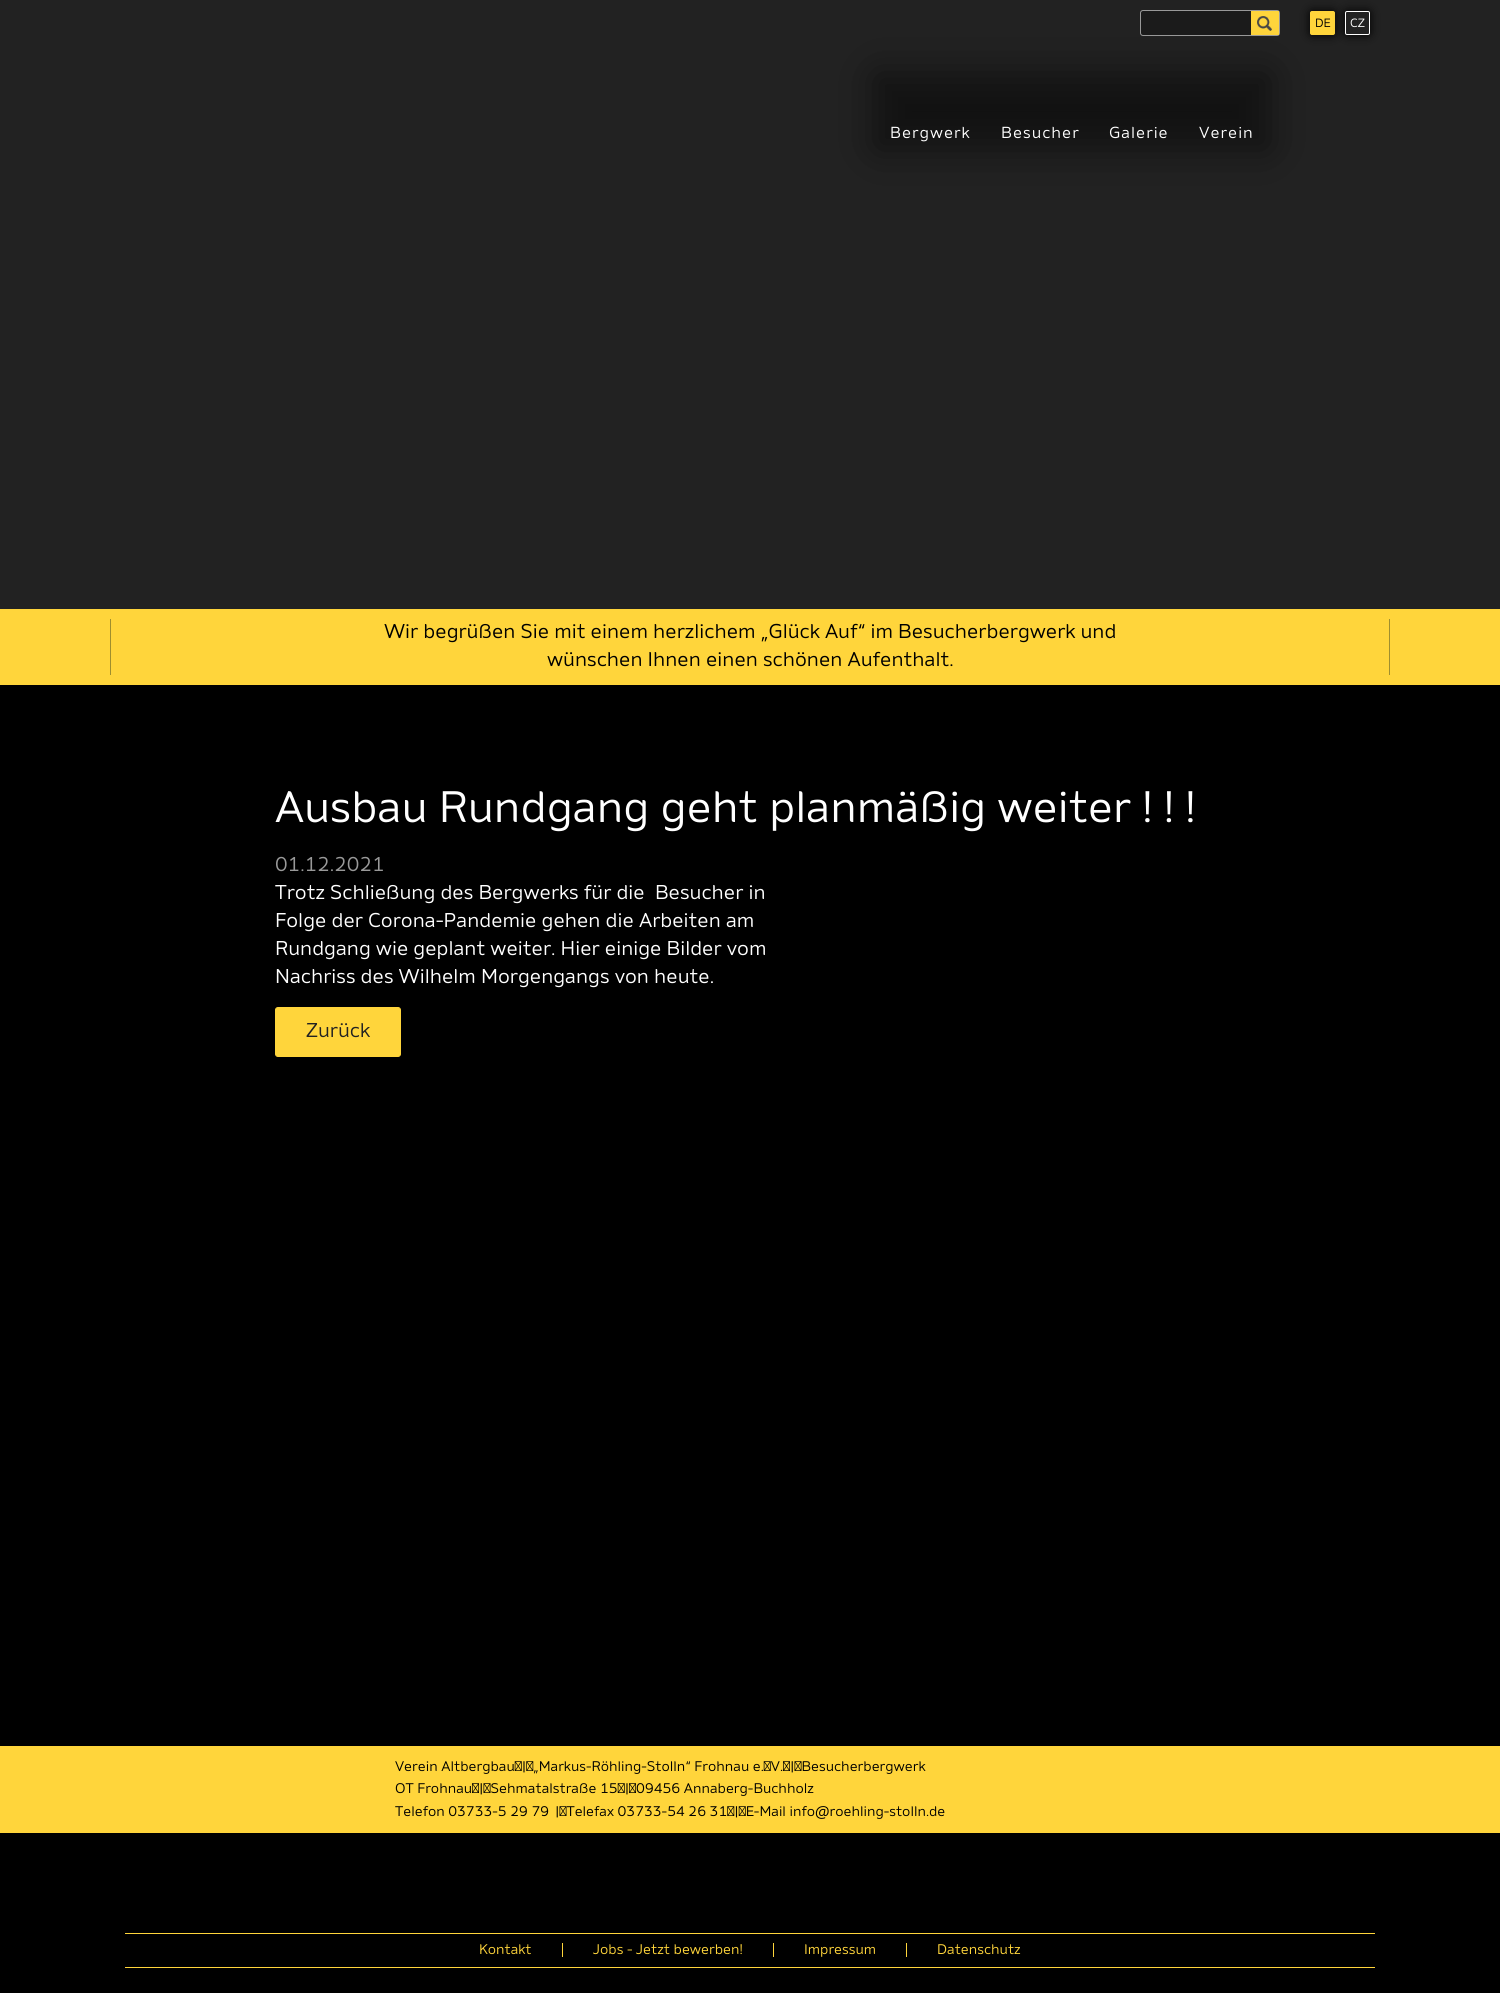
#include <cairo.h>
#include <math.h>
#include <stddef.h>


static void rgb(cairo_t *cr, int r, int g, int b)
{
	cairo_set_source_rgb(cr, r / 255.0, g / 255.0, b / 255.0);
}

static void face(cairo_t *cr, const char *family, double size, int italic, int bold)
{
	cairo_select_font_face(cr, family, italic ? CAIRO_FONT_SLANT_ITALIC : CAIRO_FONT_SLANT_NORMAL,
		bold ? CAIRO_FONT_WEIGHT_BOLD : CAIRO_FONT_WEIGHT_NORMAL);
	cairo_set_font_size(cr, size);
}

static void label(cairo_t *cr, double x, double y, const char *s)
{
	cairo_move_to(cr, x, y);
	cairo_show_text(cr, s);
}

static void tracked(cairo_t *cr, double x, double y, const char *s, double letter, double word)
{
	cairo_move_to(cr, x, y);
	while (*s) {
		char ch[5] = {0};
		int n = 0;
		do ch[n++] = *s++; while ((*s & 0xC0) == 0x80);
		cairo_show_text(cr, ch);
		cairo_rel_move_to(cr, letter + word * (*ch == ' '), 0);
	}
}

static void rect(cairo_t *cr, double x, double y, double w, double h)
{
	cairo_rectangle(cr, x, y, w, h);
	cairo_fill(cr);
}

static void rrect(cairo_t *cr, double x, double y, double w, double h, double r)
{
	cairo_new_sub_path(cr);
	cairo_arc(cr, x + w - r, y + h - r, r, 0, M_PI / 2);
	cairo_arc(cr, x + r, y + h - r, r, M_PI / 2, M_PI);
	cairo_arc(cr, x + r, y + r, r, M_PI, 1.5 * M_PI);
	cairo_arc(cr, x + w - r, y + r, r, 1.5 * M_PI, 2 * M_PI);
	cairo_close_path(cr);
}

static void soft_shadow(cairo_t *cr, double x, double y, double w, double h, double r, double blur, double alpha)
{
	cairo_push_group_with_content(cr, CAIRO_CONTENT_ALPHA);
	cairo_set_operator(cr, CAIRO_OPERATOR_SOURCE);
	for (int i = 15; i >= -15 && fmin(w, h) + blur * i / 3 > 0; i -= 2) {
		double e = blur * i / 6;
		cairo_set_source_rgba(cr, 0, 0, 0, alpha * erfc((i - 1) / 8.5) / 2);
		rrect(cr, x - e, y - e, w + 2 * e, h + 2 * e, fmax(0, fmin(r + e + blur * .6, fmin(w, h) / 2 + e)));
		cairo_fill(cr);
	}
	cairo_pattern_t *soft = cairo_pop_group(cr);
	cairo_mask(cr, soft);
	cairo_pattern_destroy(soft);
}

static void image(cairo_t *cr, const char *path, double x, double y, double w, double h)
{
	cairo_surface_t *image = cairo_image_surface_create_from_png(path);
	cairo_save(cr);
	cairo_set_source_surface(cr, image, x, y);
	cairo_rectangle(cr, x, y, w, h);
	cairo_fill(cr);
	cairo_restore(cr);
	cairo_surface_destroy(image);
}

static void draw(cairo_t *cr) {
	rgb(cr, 0, 0, 0);
	cairo_paint(cr);
	rgb(cr, 34, 34, 34);
	rect(cr, 0, 0, 1500, 609);
	rgb(cr, 27, 27, 27);
	rrect(cr, 1140.5, 10.5, 139, 25, 2.5);
	cairo_fill_preserve(cr);
	rgb(cr, 153, 153, 153);
	cairo_set_line_width(cr, 1);
	cairo_stroke(cr);
	rgb(cr, 255, 213, 59);
	rect(cr, 1251, 11, 28, 24);
	image(cr, "image0.png", 1257, 16, 15, 15);
	rgb(cr, 0, 0, 0);
	soft_shadow(cr, 1310, 11, 25, 24, 2, 5, 1);
	rgb(cr, 255, 213, 59);
	rrect(cr, 1310.5, 11.5, 24, 23, 1.5);
	cairo_fill_preserve(cr);
	cairo_stroke(cr);
	face(cr, "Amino", 12, 0, 0);
	rgb(cr, 0, 0, 0);
	label(cr, 1315, 27, "DE");
	cairo_save(cr);
	cairo_set_fill_rule(cr, CAIRO_FILL_RULE_EVEN_ODD);
	cairo_new_path(cr);
	cairo_move_to(cr, 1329, 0);
	cairo_line_to(cr, 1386, 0);
	cairo_line_to(cr, 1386, 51);
	cairo_line_to(cr, 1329, 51);
	cairo_close_path(cr);
	cairo_move_to(cr, 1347, 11);
	cairo_line_to(cr, 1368, 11);
	cairo_curve_to(cr, 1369, 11, 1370, 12, 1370, 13);
	cairo_line_to(cr, 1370, 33);
	cairo_curve_to(cr, 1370, 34, 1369, 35, 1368, 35);
	cairo_line_to(cr, 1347, 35);
	cairo_curve_to(cr, 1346, 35, 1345, 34, 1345, 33);
	cairo_line_to(cr, 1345, 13);
	cairo_curve_to(cr, 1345, 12, 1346, 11, 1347, 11);
	cairo_close_path(cr);
	cairo_clip(cr);
	rgb(cr, 0, 0, 0);
	soft_shadow(cr, 1345, 11, 25, 24, 2, 5, 1);
	cairo_restore(cr);
	rrect(cr, 1345.5, 11.5, 24, 23, 1.5);
	rgb(cr, 255, 255, 255);
	cairo_stroke(cr);
	label(cr, 1350, 27, "CZ");
	rgb(cr, 0, 0, 0);
	soft_shadow(cr, 875, 74, 394, 75, 0, 20, 0.5);
	face(cr, "Amino", 16, 0, 0);
	rgb(cr, 255, 255, 255);
	tracked(cr, 890, 138, "Bergwerk", 1, 0);
	tracked(cr, 1001, 138, "Besucher", 1, 0);
	tracked(cr, 1109, 138, "Galerie", 1, 0);
	tracked(cr, 1199, 138, "Verein", 1, 0);
	rgb(cr, 255, 213, 59);
	rect(cr, 0, 609, 1500, 76);
	rgb(cr, 159, 142, 46);
	rect(cr, 1389, 619, 1, 56);
	rect(cr, 110, 619, 1, 56);
	face(cr, "Amino", 20, 0, 0);
	rgb(cr, 0, 0, 0);
	label(cr, 384, 638, "Wir begrüßen Sie mit einem herzlichem „Glück Auf“ im Besucherbergwerk und");
	label(cr, 547, 666, "wünschen Ihnen einen schönen Aufenthalt.");
	face(cr, "Amino", 44, 0, 0);
	rgb(cr, 255, 255, 255);
	label(cr, 275, 822, "Ausbau Rundgang geht planmäßig weiter ! ! !");
	face(cr, "Amino", 20, 0, 0);
	rgb(cr, 153, 153, 153);
	label(cr, 275, 871, "01.12.2021");
	rgb(cr, 255, 255, 255);
	label(cr, 275, 899, "Trotz Schließung des Bergwerks für die  Besucher in");
	label(cr, 275, 927, "Folge der Corona-Pandemie gehen die Arbeiten am");
	label(cr, 275, 955, "Rundgang wie geplant weiter. Hier einige Bilder vom");
	label(cr, 275, 983, "Nachriss des Wilhelm Morgengangs von heute.");
	rgb(cr, 255, 213, 59);
	rrect(cr, 275.5, 1007.5, 125, 49, 2.5);
	cairo_fill_preserve(cr);
	cairo_stroke(cr);
	rgb(cr, 34, 34, 34);
	label(cr, 306, 1037, "Zurück");
	rgb(cr, 255, 213, 59);
	rect(cr, 0, 1746, 1500, 87);
	face(cr, "Amino", 14, 0, 0);
	rgb(cr, 0, 0, 0);
	label(cr, 395, 1771, "Verein Altbergbau | „Markus-Röhling-Stolln“ Frohnau e. V. | Besucherbergwerk");
	label(cr, 395, 1793, "OT Frohnau | Sehmatalstraße 15 | 09456 Annaberg-Buchholz");
	label(cr, 395, 1816, "Telefon 03733-5 29 79");
	label(cr, 555, 1816, "| Telefax 03733-54 26 31 | E-Mail info@roehling-stolln.de");
	rgb(cr, 255, 213, 59);
	rect(cr, 125, 1933, 1250, 1);
	rect(cr, 125, 1967, 1250, 1);
	rect(cr, 562, 1943, 1, 14);
	label(cr, 479, 1954, "Kontakt");
	rect(cr, 773, 1943, 1, 14);
	label(cr, 593, 1954, "Jobs - Jetzt bewerben!");
	rect(cr, 906, 1943, 1, 14);
	label(cr, 804, 1954, "Impressum");
	label(cr, 937, 1954, "Datenschutz");
}

int main(void) {
	cairo_surface_t *surface = cairo_image_surface_create(CAIRO_FORMAT_RGB24, 1500, 1993);
	cairo_t *cr = cairo_create(surface);
	cairo_font_options_t *options = cairo_font_options_create();
	cairo_font_options_set_hint_metrics(options, CAIRO_HINT_METRICS_OFF);
	cairo_font_options_set_hint_style(options, CAIRO_HINT_STYLE_NONE);
	cairo_set_font_options(cr, options);
	cairo_set_miter_limit(cr, 4);
	draw(cr);
	cairo_surface_write_to_png(surface, "render.png");
	cairo_font_options_destroy(options);
	cairo_destroy(cr);
	cairo_surface_destroy(surface);
	return 0;
}
